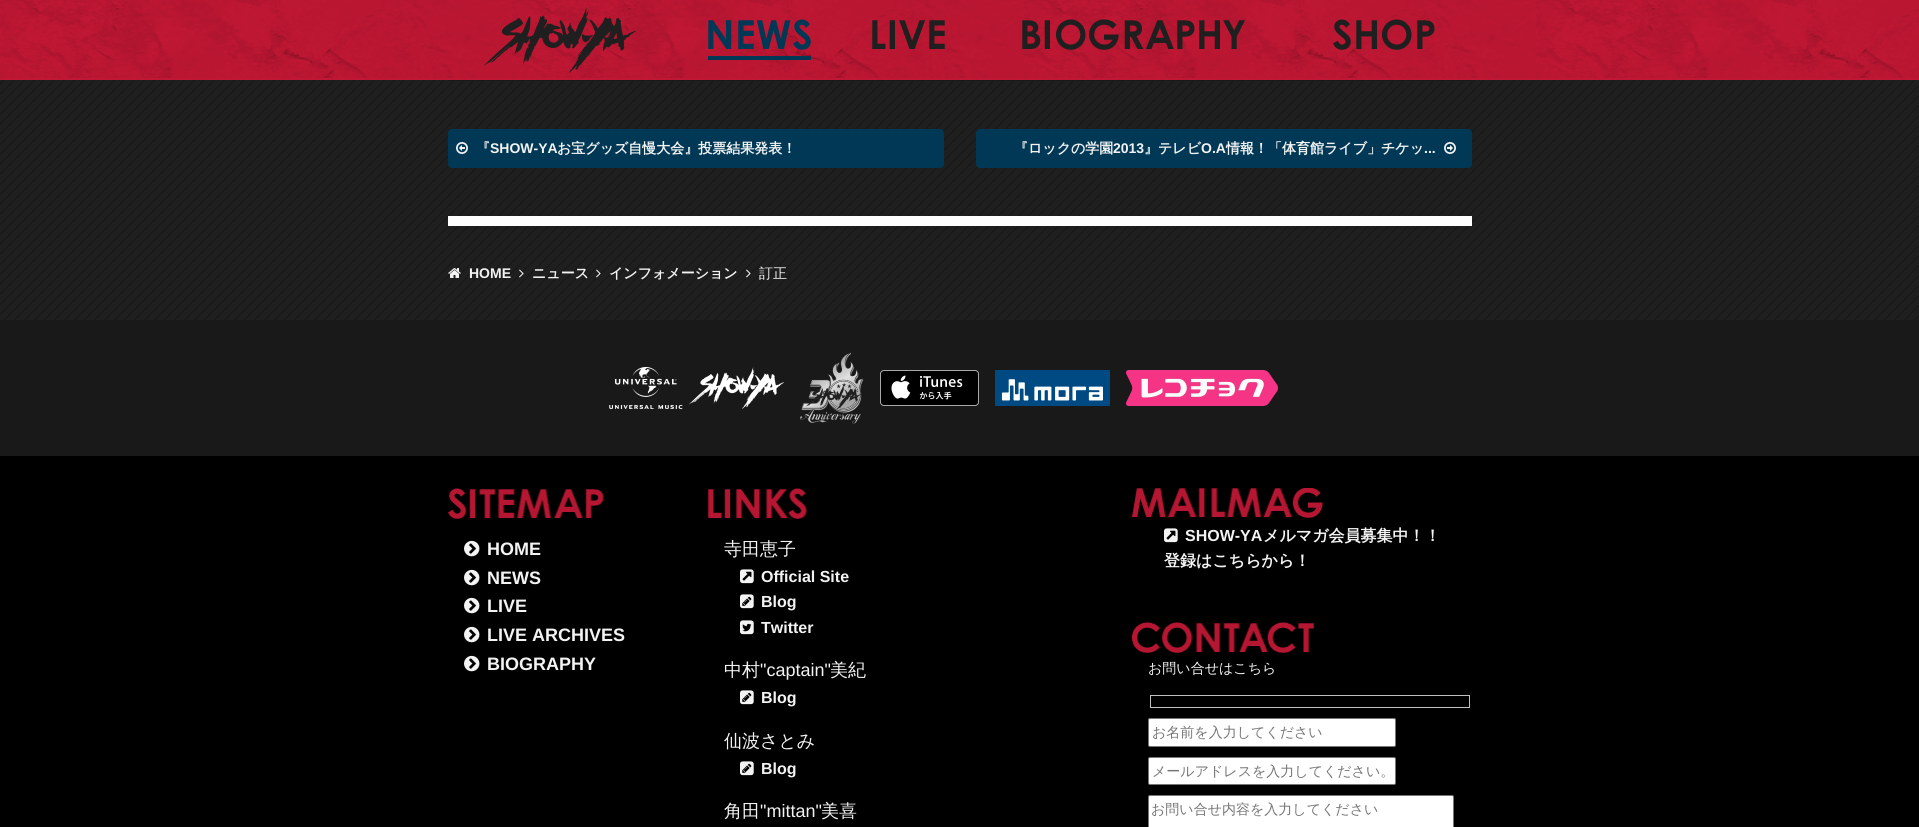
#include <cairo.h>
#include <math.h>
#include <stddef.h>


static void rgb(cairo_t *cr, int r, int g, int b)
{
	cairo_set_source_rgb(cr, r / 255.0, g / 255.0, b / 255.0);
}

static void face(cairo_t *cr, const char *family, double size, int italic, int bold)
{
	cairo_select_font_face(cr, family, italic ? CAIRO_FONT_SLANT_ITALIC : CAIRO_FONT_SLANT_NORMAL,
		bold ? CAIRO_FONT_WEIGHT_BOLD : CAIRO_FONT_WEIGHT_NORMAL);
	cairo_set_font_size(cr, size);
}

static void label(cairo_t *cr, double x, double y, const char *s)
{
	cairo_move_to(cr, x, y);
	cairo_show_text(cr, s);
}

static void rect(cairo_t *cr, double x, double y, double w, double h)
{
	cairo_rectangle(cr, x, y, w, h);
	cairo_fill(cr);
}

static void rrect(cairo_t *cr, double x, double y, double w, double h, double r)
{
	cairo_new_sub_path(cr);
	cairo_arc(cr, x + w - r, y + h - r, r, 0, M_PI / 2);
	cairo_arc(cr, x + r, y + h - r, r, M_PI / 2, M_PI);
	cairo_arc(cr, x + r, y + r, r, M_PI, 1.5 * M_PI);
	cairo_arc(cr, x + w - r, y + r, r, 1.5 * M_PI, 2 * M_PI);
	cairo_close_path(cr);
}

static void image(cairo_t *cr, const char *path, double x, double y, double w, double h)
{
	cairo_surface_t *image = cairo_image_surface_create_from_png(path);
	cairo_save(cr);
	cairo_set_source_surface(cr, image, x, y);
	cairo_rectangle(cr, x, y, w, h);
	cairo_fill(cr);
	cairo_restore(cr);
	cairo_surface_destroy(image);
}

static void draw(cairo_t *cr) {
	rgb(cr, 0, 0, 0);
	cairo_paint(cr);
	image(cr, "image0.png", 0, 0, 1919, 80);
	image(cr, "image1.png", 484, 7, 152, 66);
	image(cr, "image2.png", 708, 19, 103, 41);
	image(cr, "image3.png", 872, 20, 73, 29);
	image(cr, "image4.png", 1022, 19, 223, 31);
	image(cr, "image5.png", 1333, 19, 102, 31);
	image(cr, "image6.png", 0, 80, 1919, 240);
	rgb(cr, 25, 25, 25);
	rect(cr, 448, 80, 1024, 1);
	rgb(cr, 0, 56, 86);
	rrect(cr, 448, 129, 496, 39, 4);
	cairo_fill(cr);
	image(cr, "image7.png", 456, 142, 12, 12);
	face(cr, "WenQuanYi Zen Hei", 14, 0, 1);
	rgb(cr, 243, 243, 243);
	label(cr, 476, 153, "『");
	face(cr, "Liberation Sans", 14, 0, 1);
	label(cr, 490, 153, "SHOW-YA");
	face(cr, "WenQuanYi Zen Hei", 14, 0, 1);
	label(cr, 557, 153, "お宝グッズ自慢大会』投票結果発表！");
	rgb(cr, 0, 56, 86);
	rrect(cr, 976, 129, 496, 39, 4);
	cairo_fill(cr);
	rgb(cr, 243, 243, 243);
	label(cr, 1014, 153, "『ロックの学園");
	face(cr, "Liberation Sans", 14, 0, 1);
	label(cr, 1113, 153, "2013");
	face(cr, "WenQuanYi Zen Hei", 14, 0, 1);
	label(cr, 1144, 153, "』テレビ");
	face(cr, "Liberation Sans", 14, 0, 1);
	label(cr, 1201, 153, "O.A");
	face(cr, "WenQuanYi Zen Hei", 14, 0, 1);
	label(cr, 1226, 153, "情報！「体育館ライブ」チケッ");
	face(cr, "Liberation Sans", 14, 0, 1);
	label(cr, 1424, 153, "...");
	image(cr, "image8.png", 1444, 142, 12, 12);
	rgb(cr, 255, 255, 255);
	rect(cr, 448, 216, 1024, 10);
	image(cr, "image9.png", 448, 268, 13, 10);
	rgb(cr, 243, 243, 243);
	label(cr, 469, 278, "HOME");
	image(cr, "image10.png", 519, 269, 5, 9);
	face(cr, "WenQuanYi Zen Hei", 14, 0, 1);
	label(cr, 532, 278, "ニュース");
	image(cr, "image11.png", 596, 269, 5, 9);
	label(cr, 609, 278, "インフォメーション");
	image(cr, "image11.png", 746, 269, 5, 9);
	face(cr, "WenQuanYi Zen Hei Medium", 14, 0, 0);
	label(cr, 759, 278, "訂正");
	rgb(cr, 25, 25, 25);
	rect(cr, 0, 320, 1919, 136);
	image(cr, "image12.png", 609, 367, 175, 42);
	image(cr, "image13.png", 800, 352, 64, 72);
	image(cr, "image14.png", 880, 370, 99, 36);
	image(cr, "image15.png", 995, 370, 115, 36);
	image(cr, "image16.png", 1126, 370, 152, 36);
	image(cr, "image17.png", 448, 488, 156, 31);
	image(cr, "image18.png", 464, 540, 16, 17);
	face(cr, "Liberation Sans", 18, 0, 1);
	rgb(cr, 243, 243, 243);
	label(cr, 487, 555, "HOME");
	image(cr, "image18.png", 464, 569, 16, 17);
	label(cr, 487, 584, "NEWS");
	image(cr, "image18.png", 464, 597, 16, 17);
	label(cr, 487, 612, "LIVE");
	image(cr, "image18.png", 464, 626, 16, 17);
	label(cr, 487, 641, "LIVE ARCHIVES");
	image(cr, "image18.png", 464, 655, 16, 17);
	label(cr, 487, 670, "BIOGRAPHY");
	image(cr, "image19.png", 708, 488, 99, 31);
	face(cr, "WenQuanYi Zen Hei Medium", 18, 0, 0);
	label(cr, 724, 555, "寺田恵子");
	image(cr, "image20.png", 740, 569, 14, 15);
	face(cr, "Liberation Sans", 16, 0, 1);
	label(cr, 761, 582, "Official Site");
	image(cr, "image21.png", 740, 594, 14, 15);
	label(cr, 761, 607, "Blog");
	image(cr, "image22.png", 740, 620, 14, 15);
	label(cr, 761, 633, "Twitter");
	face(cr, "WenQuanYi Zen Hei Medium", 18, 0, 0);
	label(cr, 724, 676, "中村");
	face(cr, "Liberation Sans", 18, 0, 0);
	label(cr, 760, 676, "\"captain\"");
	face(cr, "WenQuanYi Zen Hei Medium", 18, 0, 0);
	label(cr, 830, 676, "美紀");
	image(cr, "image21.png", 740, 690, 14, 15);
	face(cr, "Liberation Sans", 16, 0, 1);
	label(cr, 761, 703, "Blog");
	face(cr, "WenQuanYi Zen Hei Medium", 18, 0, 0);
	label(cr, 724, 747, "仙波さとみ");
	image(cr, "image21.png", 740, 761, 14, 15);
	face(cr, "Liberation Sans", 16, 0, 1);
	label(cr, 761, 774, "Blog");
	face(cr, "WenQuanYi Zen Hei Medium", 18, 0, 0);
	label(cr, 724, 817, "角田");
	face(cr, "Liberation Sans", 18, 0, 0);
	label(cr, 760, 817, "\"mittan\"");
	face(cr, "WenQuanYi Zen Hei Medium", 18, 0, 0);
	label(cr, 821, 817, "美喜");
	image(cr, "image23.png", 1132, 488, 191, 30);
	image(cr, "image20.png", 1164, 528, 14, 15);
	face(cr, "Liberation Sans", 16, 0, 1);
	label(cr, 1185, 541, "SHOW-YA");
	face(cr, "WenQuanYi Zen Hei", 16, 0, 1);
	label(cr, 1263, 541, "メルマガ会員募集中！！");
	label(cr, 1164, 566, "登録はこちらから！");
	image(cr, "image24.png", 1132, 622, 182, 31);
	face(cr, "WenQuanYi Zen Hei Medium", 14, 0, 0);
	label(cr, 1148, 673, "お問い合せはこちら");
	cairo_rectangle(cr, 1150.5, 695.5, 319, 12);
	rgb(cr, 192, 192, 192);
	cairo_set_line_width(cr, 1);
	cairo_stroke(cr);
	rgb(cr, 255, 255, 255);
	rrect(cr, 1148.5, 718.5, 247, 28, 1.5);
	cairo_fill_preserve(cr);
	rgb(cr, 118, 118, 118);
	cairo_stroke(cr);
	rgb(cr, 117, 117, 117);
	label(cr, 1152, 737, "お名前を入力してください");
	rgb(cr, 255, 255, 255);
	rrect(cr, 1148.5, 757.5, 247, 27, 1.5);
	cairo_fill_preserve(cr);
	rgb(cr, 118, 118, 118);
	cairo_stroke(cr);
	rgb(cr, 117, 117, 117);
	label(cr, 1152, 776, "メールアドレスを入力してください。");
	rgb(cr, 255, 255, 255);
	rrect(cr, 1148.5, 795.5, 305, 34, 1.5);
	cairo_fill_preserve(cr);
	rgb(cr, 118, 118, 118);
	cairo_stroke(cr);
	rgb(cr, 117, 117, 117);
	label(cr, 1151, 814, "お問い合せ内容を入力してください");
}

int main(void) {
	cairo_surface_t *surface = cairo_image_surface_create(CAIRO_FORMAT_RGB24, 1919, 827);
	cairo_t *cr = cairo_create(surface);
	cairo_font_options_t *options = cairo_font_options_create();
	cairo_font_options_set_hint_metrics(options, CAIRO_HINT_METRICS_OFF);
	cairo_font_options_set_hint_style(options, CAIRO_HINT_STYLE_NONE);
	cairo_set_font_options(cr, options);
	cairo_set_miter_limit(cr, 4);
	draw(cr);
	cairo_surface_write_to_png(surface, "render.png");
	cairo_font_options_destroy(options);
	cairo_destroy(cr);
	cairo_surface_destroy(surface);
	return 0;
}
